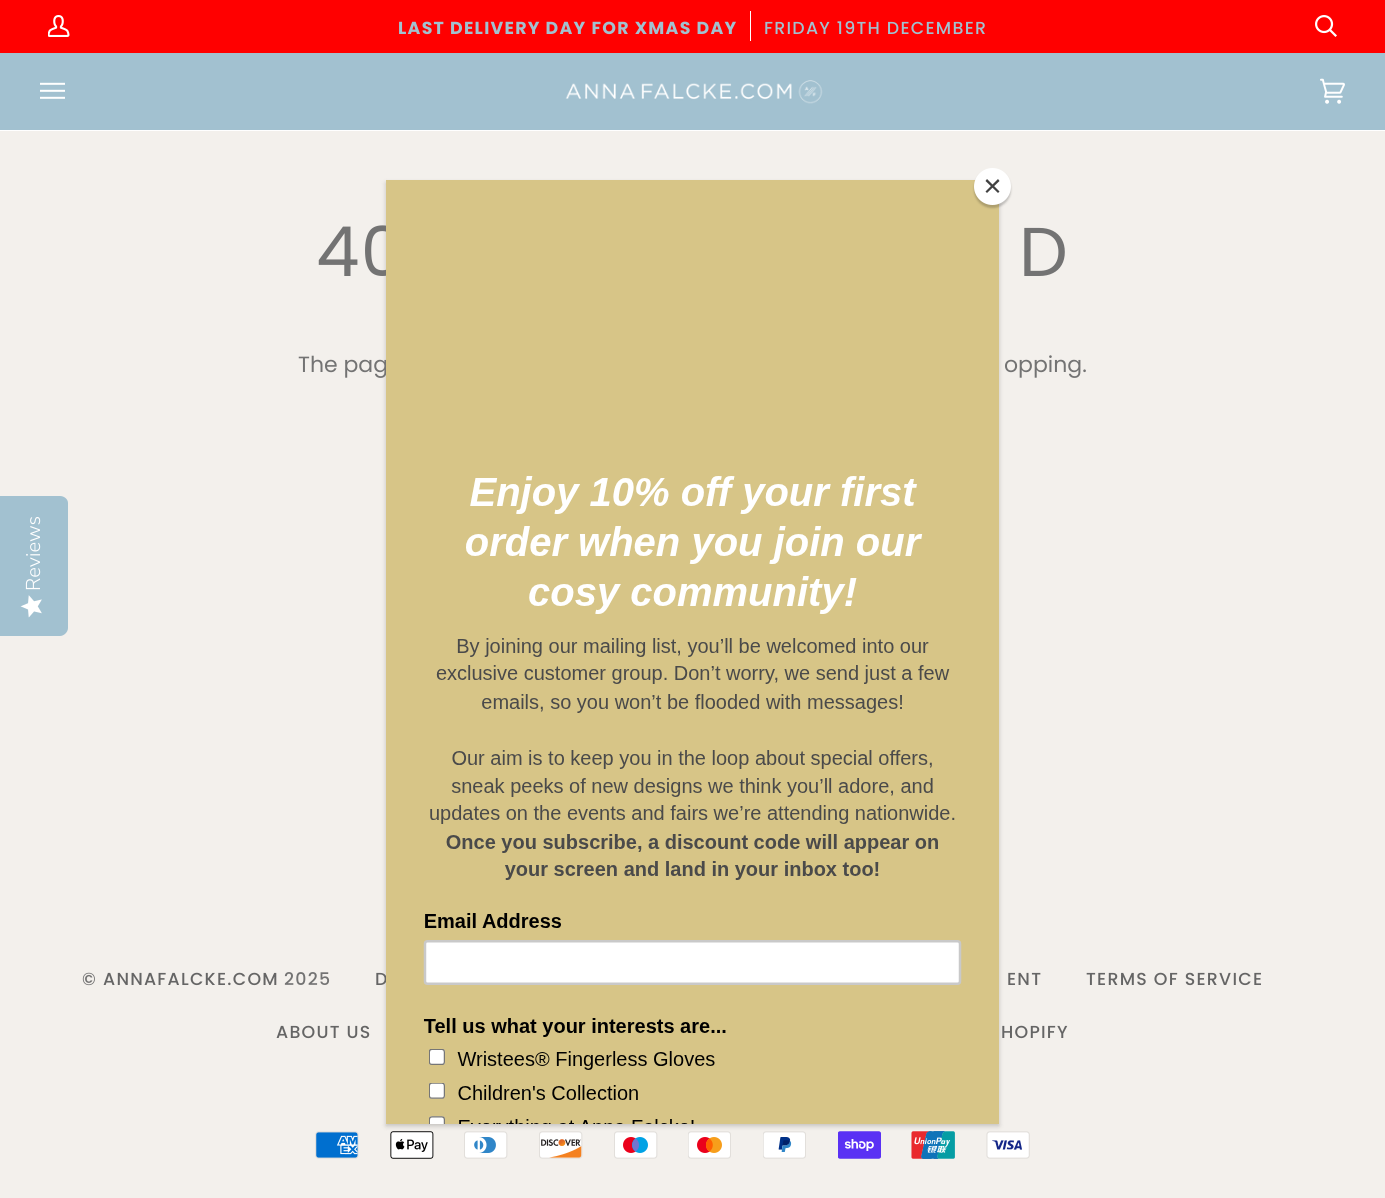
#include <cairo.h>
#include <math.h>
#include <stddef.h>


static void rgb(cairo_t *cr, int r, int g, int b)
{
	cairo_set_source_rgb(cr, r / 255.0, g / 255.0, b / 255.0);
}

static void face(cairo_t *cr, const char *family, double size, int italic, int bold)
{
	cairo_select_font_face(cr, family, italic ? CAIRO_FONT_SLANT_ITALIC : CAIRO_FONT_SLANT_NORMAL,
		bold ? CAIRO_FONT_WEIGHT_BOLD : CAIRO_FONT_WEIGHT_NORMAL);
	cairo_set_font_size(cr, size);
}

static void label(cairo_t *cr, double x, double y, const char *s)
{
	cairo_move_to(cr, x, y);
	cairo_show_text(cr, s);
}

static void tracked(cairo_t *cr, double x, double y, const char *s, double letter, double word)
{
	cairo_move_to(cr, x, y);
	while (*s) {
		char ch[5] = {0};
		int n = 0;
		do ch[n++] = *s++; while ((*s & 0xC0) == 0x80);
		cairo_show_text(cr, ch);
		cairo_rel_move_to(cr, letter + word * (*ch == ' '), 0);
	}
}

static void rect(cairo_t *cr, double x, double y, double w, double h)
{
	cairo_rectangle(cr, x, y, w, h);
	cairo_fill(cr);
}

static void rrect(cairo_t *cr, double x, double y, double w, double h, double r)
{
	cairo_new_sub_path(cr);
	cairo_arc(cr, x + w - r, y + h - r, r, 0, M_PI / 2);
	cairo_arc(cr, x + r, y + h - r, r, M_PI / 2, M_PI);
	cairo_arc(cr, x + r, y + r, r, M_PI, 1.5 * M_PI);
	cairo_arc(cr, x + w - r, y + r, r, 1.5 * M_PI, 2 * M_PI);
	cairo_close_path(cr);
}

static void soft_shadow(cairo_t *cr, double x, double y, double w, double h, double r, double blur, double alpha)
{
	cairo_push_group_with_content(cr, CAIRO_CONTENT_ALPHA);
	cairo_set_operator(cr, CAIRO_OPERATOR_SOURCE);
	for (int i = 15; i >= -15 && fmin(w, h) + blur * i / 3 > 0; i -= 2) {
		double e = blur * i / 6;
		cairo_set_source_rgba(cr, 0, 0, 0, alpha * erfc((i - 1) / 8.5) / 2);
		rrect(cr, x - e, y - e, w + 2 * e, h + 2 * e, fmax(0, fmin(r + e + blur * .6, fmin(w, h) / 2 + e)));
		cairo_fill(cr);
	}
	cairo_pattern_t *soft = cairo_pop_group(cr);
	cairo_mask(cr, soft);
	cairo_pattern_destroy(soft);
}

static void image(cairo_t *cr, const char *path, double x, double y, double w, double h)
{
	cairo_surface_t *image = cairo_image_surface_create_from_png(path);
	cairo_save(cr);
	cairo_set_source_surface(cr, image, x, y);
	cairo_rectangle(cr, x, y, w, h);
	cairo_fill(cr);
	cairo_restore(cr);
	cairo_surface_destroy(image);
}

static void draw(cairo_t *cr) {
	rgb(cr, 243, 240, 236);
	cairo_paint(cr);
	rgb(cr, 255, 0, 0);
	rect(cr, 0, 0, 1385, 53);
	image(cr, "image0.png", 48, 15, 22, 22);
	face(cr, "Poppins", 17.4, 0, 1);
	rgb(cr, 162, 193, 208);
	tracked(cr, 398, 34, "LAST DELIVERY DAY FOR XMAS DAY", 1.25, 0);
	rgb(cr, 255, 255, 255);
	rect(cr, 750, 11, 1, 30);
	face(cr, "Poppins Medium", 17.4, 0, 0);
	rgb(cr, 162, 193, 208);
	tracked(cr, 764, 34, "FRIDAY 19TH DECEMBER", 1.25, 0);
	image(cr, "image1.png", 1315, 15, 22, 22);
	rect(cr, 0, 53, 1385, 77);
	rgb(cr, 255, 255, 255);
	rect(cr, 0, 130, 1385, 1);
	image(cr, "image2.png", 40, 82, 25, 17);
	image(cr, "image3.png", 565, 80, 258, 24);
	image(cr, "image4.png", 1320, 78, 25, 26);
	image(cr, "image8.png", 390, 1131, 44, 28);
	image(cr, "image9.png", 464, 1131, 44, 28);
	image(cr, "image10.png", 539, 1131, 44, 28);
	image(cr, "image11.png", 614, 1131, 44, 28);
	image(cr, "image12.png", 688, 1131, 43, 28);
	image(cr, "image13.png", 763, 1131, 43, 28);
	image(cr, "image14.png", 838, 1131, 43, 28);
	image(cr, "image15.png", 911, 1131, 44, 28);
	image(cr, "image16.png", 986, 1131, 44, 28);
	rgb(cr, 0, 0, 0);
	soft_shadow(cr, 386, 183, 613, 943, 0, 2.5, 0.2);
	face(cr, "Poppins", 69, 0, 0);
	rgb(cr, 115, 115, 115);
	tracked(cr, 316, 276, "40", 1.25, 0);
	face(cr, "Poppins", 22, 0, 0);
	label(cr, 298, 372, "The pag");
	face(cr, "Poppins Medium", 17.4, 0, 0);
	rgb(cr, 101, 101, 101);
	tracked(cr, 375, 985, "D", 1.25, 0);
	image(cr, "image5.png", 386, 180, 613, 944);
	rgb(cr, 0, 0, 0);
	soft_shadow(cr, 974, 170, 37, 38, 18.5, 1, 0.2);
	rgb(cr, 255, 255, 255);
	cairo_arc(cr, 992.5, 186.5, 18.5, 0, 2 * M_PI);
	cairo_fill(cr);
	rgb(cr, 65, 65, 65);
	cairo_new_path(cr);
	cairo_move_to(cr, 998, 179);
	cairo_line_to(cr, 999.5, 181);
	cairo_line_to(cr, 987, 193);
	cairo_line_to(cr, 985.5, 191.5);
	cairo_close_path(cr);
	cairo_fill(cr);
	cairo_new_path(cr);
	cairo_move_to(cr, 985.5, 181);
	cairo_line_to(cr, 987, 179);
	cairo_line_to(cr, 999.5, 191.5);
	cairo_line_to(cr, 998, 193);
	cairo_close_path(cr);
	cairo_fill(cr);
	face(cr, "Poppins", 69, 0, 0);
	rgb(cr, 115, 115, 115);
	tracked(cr, 1019, 276, "D", 1.25, 0);
	face(cr, "Poppins", 22, 0, 0);
	label(cr, 1004, 372, "opping.");
	rgb(cr, 162, 193, 208);
	cairo_new_path(cr);
	cairo_move_to(cr, 0, 636);
	cairo_line_to(cr, 0, 496);
	cairo_line_to(cr, 60, 496);
	cairo_curve_to(cr, 64, 496, 68, 499, 68, 503);
	cairo_line_to(cr, 68, 628);
	cairo_curve_to(cr, 68, 632, 64, 636, 60, 636);
	cairo_close_path(cr);
	cairo_fill(cr);
	face(cr, "Nunito Sans Light", 20, 0, 0);
	rgb(cr, 255, 255, 255);
	cairo_save(cr);
	cairo_translate(cr, 40, 591);
	cairo_rotate(cr, -90 * M_PI / 180);
	label(cr, 0, 0, "Reviews");
	cairo_restore(cr);
	image(cr, "image6.png", 20, 595, 22, 23);
	face(cr, "Poppins Medium", 17.4, 0, 0);
	rgb(cr, 115, 115, 115);
	tracked(cr, 82, 985, "©", 1.25, 0);
	rgb(cr, 101, 101, 101);
	tracked(cr, 103, 985, "ANNAFALCKE.COM", 1.25, 0);
	rgb(cr, 115, 115, 115);
	tracked(cr, 284, 985, "2025", 1.25, 0);
	rgb(cr, 101, 101, 101);
	tracked(cr, 1007, 985, "ENT", 1.25, 0);
	tracked(cr, 1086, 985, "TERMS OF SERVICE", 1.25, 0);
	tracked(cr, 276, 1038, "ABOUT US", 1.25, 0);
	tracked(cr, 1001, 1038, "HOPIFY", 1.25, 0);
	image(cr, "image7.png", 315, 1131, 44, 28);
}

int main(void) {
	cairo_surface_t *surface = cairo_image_surface_create(CAIRO_FORMAT_RGB24, 1385, 1198);
	cairo_t *cr = cairo_create(surface);
	cairo_font_options_t *options = cairo_font_options_create();
	cairo_font_options_set_hint_metrics(options, CAIRO_HINT_METRICS_OFF);
	cairo_font_options_set_hint_style(options, CAIRO_HINT_STYLE_NONE);
	cairo_set_font_options(cr, options);
	cairo_set_miter_limit(cr, 4);
	draw(cr);
	cairo_surface_write_to_png(surface, "render.png");
	cairo_font_options_destroy(options);
	cairo_destroy(cr);
	cairo_surface_destroy(surface);
	return 0;
}
